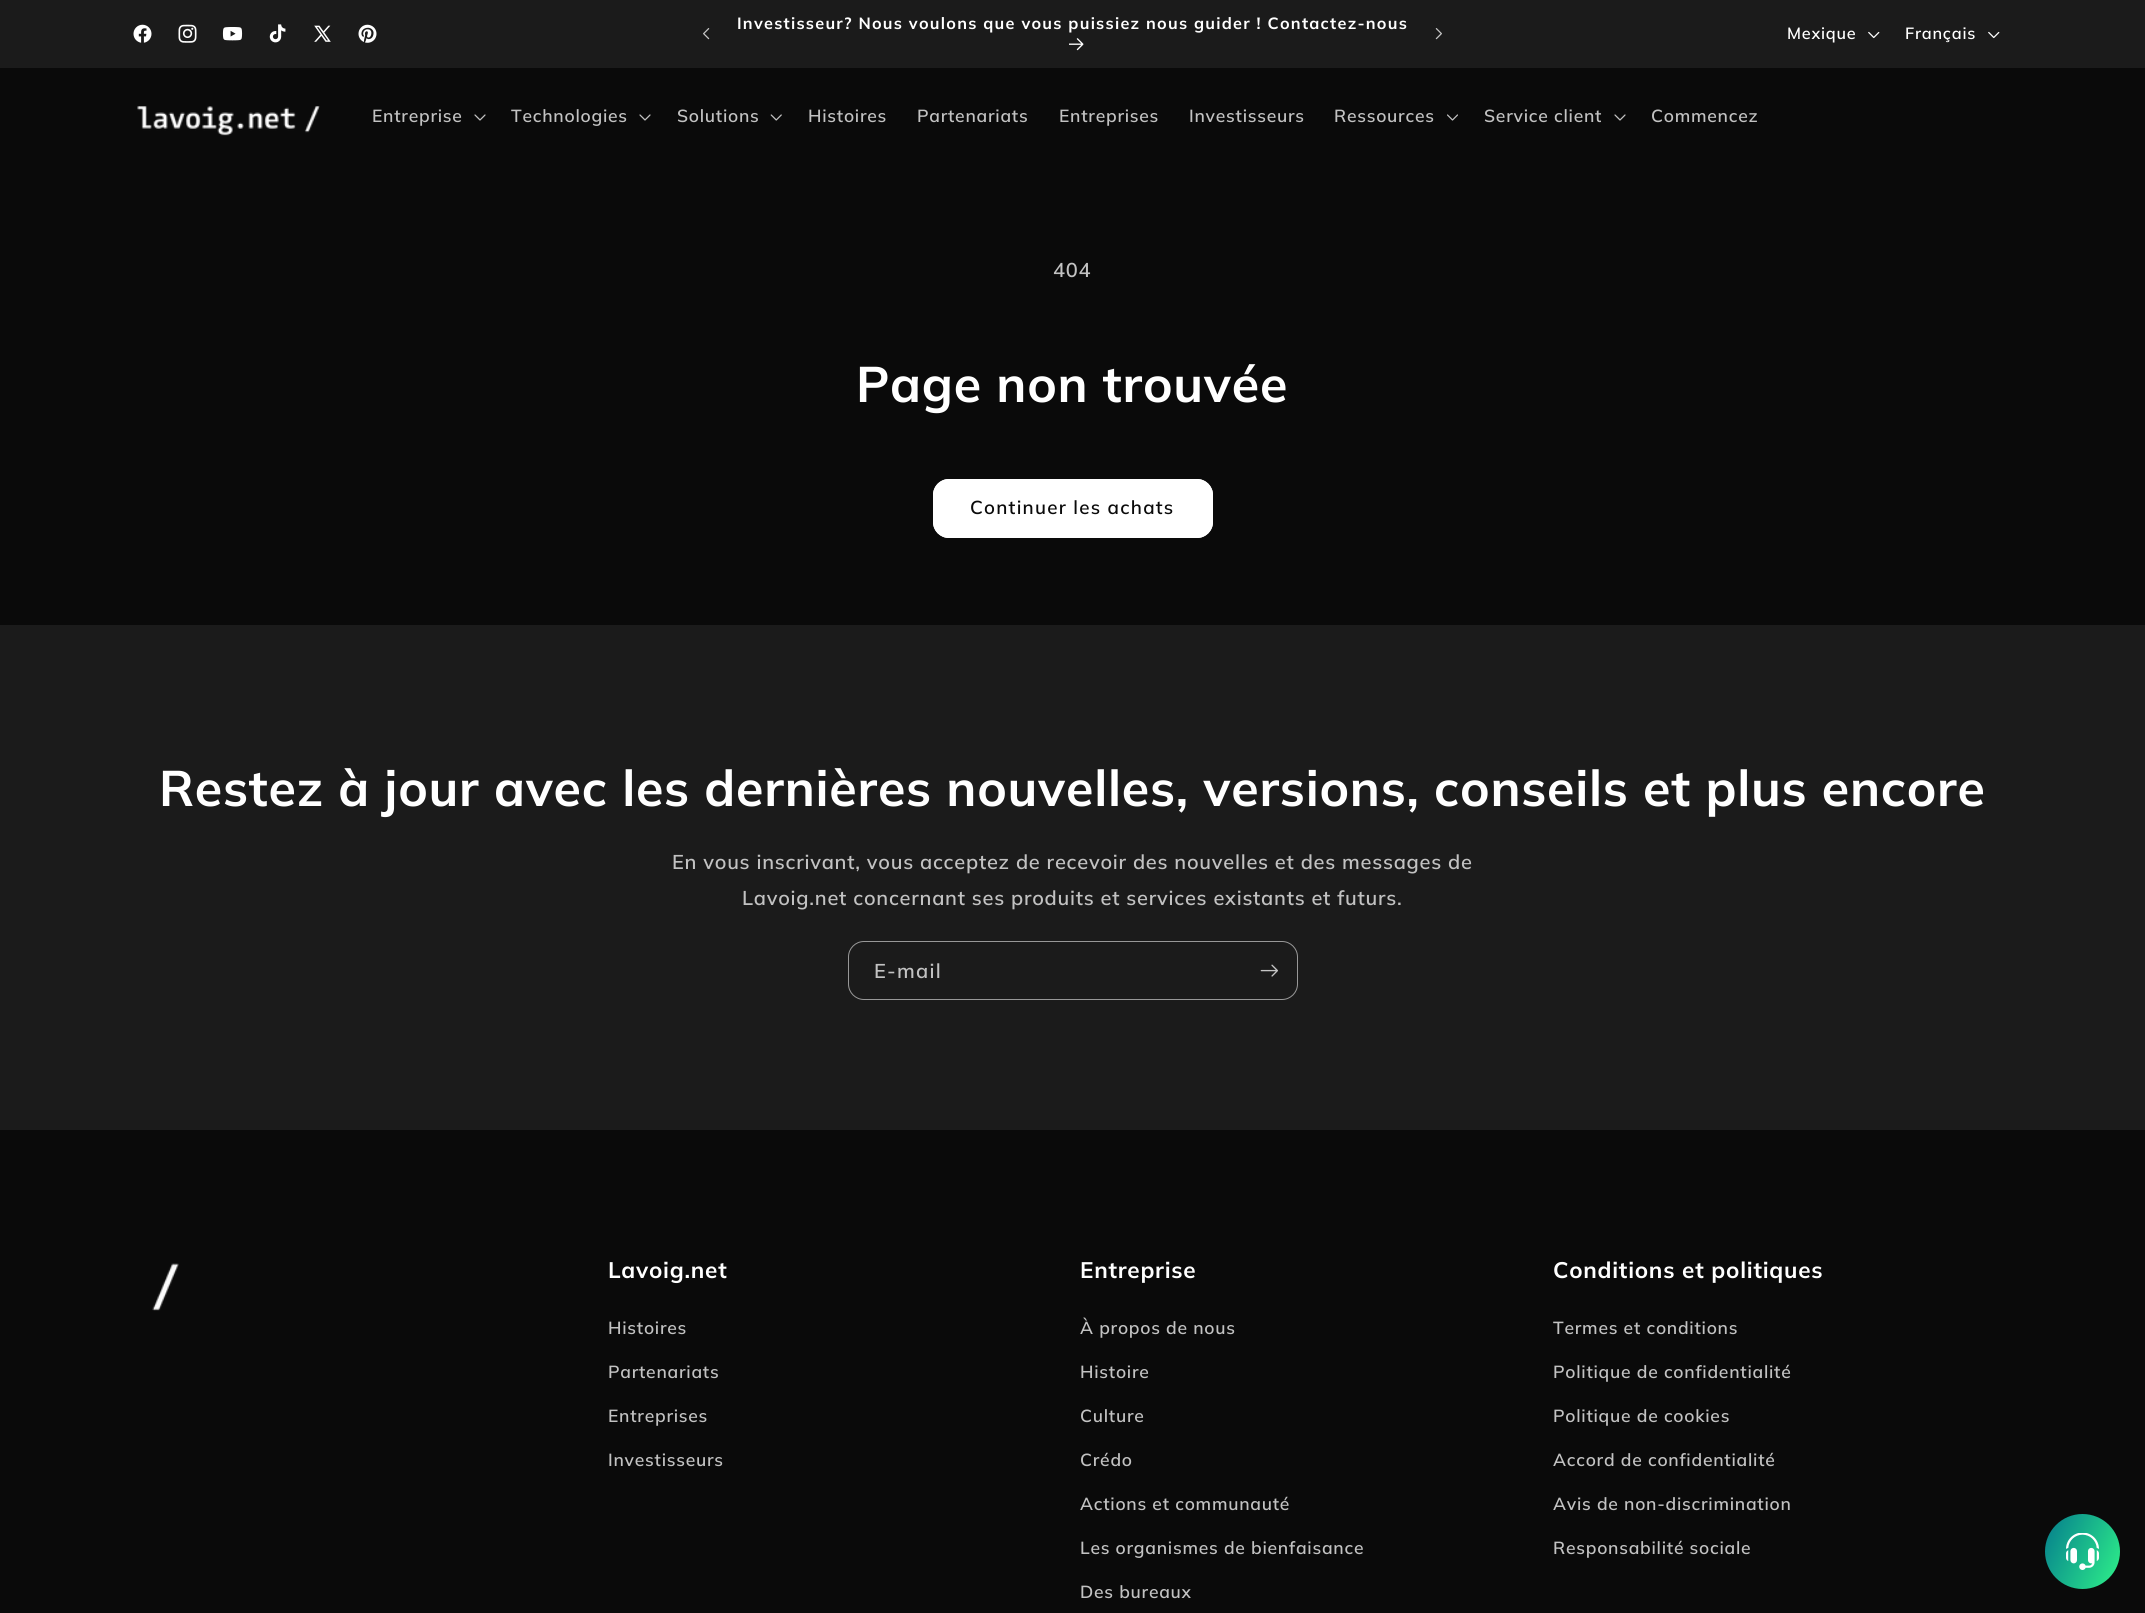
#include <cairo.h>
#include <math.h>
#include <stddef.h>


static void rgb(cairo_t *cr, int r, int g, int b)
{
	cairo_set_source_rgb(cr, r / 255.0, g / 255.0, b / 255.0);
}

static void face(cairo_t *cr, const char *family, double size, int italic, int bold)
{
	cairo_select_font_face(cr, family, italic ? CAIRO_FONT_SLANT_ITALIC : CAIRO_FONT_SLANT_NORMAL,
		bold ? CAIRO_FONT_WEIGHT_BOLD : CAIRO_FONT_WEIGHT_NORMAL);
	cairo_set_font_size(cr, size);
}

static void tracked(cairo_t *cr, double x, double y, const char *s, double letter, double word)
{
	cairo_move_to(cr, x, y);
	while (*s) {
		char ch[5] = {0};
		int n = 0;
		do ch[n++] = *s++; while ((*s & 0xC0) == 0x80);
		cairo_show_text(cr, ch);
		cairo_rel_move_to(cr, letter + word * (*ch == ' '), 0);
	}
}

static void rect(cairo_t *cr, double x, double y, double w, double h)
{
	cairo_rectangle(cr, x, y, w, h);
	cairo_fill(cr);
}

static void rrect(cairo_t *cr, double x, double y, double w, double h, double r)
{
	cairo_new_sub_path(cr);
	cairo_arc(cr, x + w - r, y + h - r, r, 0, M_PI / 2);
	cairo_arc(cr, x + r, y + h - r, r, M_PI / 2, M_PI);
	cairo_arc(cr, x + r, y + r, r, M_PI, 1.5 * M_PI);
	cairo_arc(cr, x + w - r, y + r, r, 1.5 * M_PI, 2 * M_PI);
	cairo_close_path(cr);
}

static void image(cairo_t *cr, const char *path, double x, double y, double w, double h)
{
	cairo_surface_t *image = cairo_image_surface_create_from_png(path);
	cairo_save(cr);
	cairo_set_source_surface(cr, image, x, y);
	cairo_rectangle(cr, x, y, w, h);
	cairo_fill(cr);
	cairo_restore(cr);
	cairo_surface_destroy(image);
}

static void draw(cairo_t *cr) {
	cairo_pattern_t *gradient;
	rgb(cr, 10, 10, 10);
	cairo_paint(cr);
	rgb(cr, 27, 27, 27);
	rect(cr, 0, 0, 2145, 68);
	image(cr, "image0.png", 133, 24, 19, 19);
	image(cr, "image1.png", 178, 24, 19, 19);
	image(cr, "image2.png", 222, 27, 21, 14);
	image(cr, "image3.png", 269, 24, 17, 19);
	image(cr, "image4.png", 314, 25, 17, 17);
	image(cr, "image5.png", 358, 24, 19, 19);
	image(cr, "image6.png", 703, 28, 7, 12);
	face(cr, "Muli", 16.25, 0, 1);
	rgb(cr, 255, 255, 255);
	tracked(cr, 737, 29, "Investisseur? Nous voulons que vous puissiez nous guider ! Contactez-nous", 1.25, 0);
	image(cr, "image7.png", 1069, 38, 15, 13);
	image(cr, "image8.png", 1435, 28, 7, 12);
	face(cr, "Muli SemiBold", 16.25, 0, 0);
	tracked(cr, 1787, 39, "Mexique", 0.75, 0);
	image(cr, "image9.png", 1868, 31, 12, 8);
	tracked(cr, 1905, 39, "Français", 0.75, 0);
	image(cr, "image9.png", 1988, 31, 12, 8);
	image(cr, "image10.png", 137, 106, 183, 30);
	face(cr, "Muli SemiBold", 17.5, 0, 0);
	rgb(cr, 194, 194, 194);
	tracked(cr, 372, 122, "Entreprise", 0.75, 0);
	image(cr, "image11.png", 474, 114, 12, 7);
	tracked(cr, 511, 122, "Technologies", 0.75, 0);
	image(cr, "image11.png", 639, 114, 12, 7);
	tracked(cr, 677, 122, "Solutions", 0.75, 0);
	image(cr, "image12.png", 770, 114, 12, 7);
	tracked(cr, 808, 122, "Histoires", 0.75, 0);
	tracked(cr, 917, 122, "Partenariats", 0.75, 0);
	tracked(cr, 1059, 122, "Entreprises", 0.75, 0);
	tracked(cr, 1189, 122, "Investisseurs", 0.75, 0);
	tracked(cr, 1334, 122, "Ressources", 0.75, 0);
	image(cr, "image13.png", 1447, 114, 11, 7);
	tracked(cr, 1484, 122, "Service client", 0.75, 0);
	image(cr, "image11.png", 1614, 114, 12, 7);
	tracked(cr, 1651, 122, "Commencez", 0.75, 0);
	face(cr, "Muli SemiBold", 20, 0, 0);
	tracked(cr, 1053, 277, "404", 0.75, 0);
	face(cr, "Muli", 50, 0, 1);
	rgb(cr, 255, 255, 255);
	tracked(cr, 856, 402, "Page non trouvée", 0.75, 0);
	rrect(cr, 933, 479, 280, 59, 16);
	cairo_fill(cr);
	rrect(cr, 933.5, 479.5, 279, 58, 15.5);
	cairo_set_line_width(cr, 1);
	cairo_stroke(cr);
	face(cr, "Muli SemiBold", 18.75, 0, 0);
	rgb(cr, 10, 10, 10);
	tracked(cr, 970, 514, "Continuer les achats", 1.25, 0);
	rgb(cr, 27, 27, 27);
	rect(cr, 0, 625, 2145, 5);
	rect(cr, 0, 630, 2145, 500);
	face(cr, "Muli", 50, 0, 1);
	rgb(cr, 255, 255, 255);
	tracked(cr, 159, 806, "Restez à jour avec les dernières nouvelles, versions, conseils et plus encore", 0.75, 0);
	face(cr, "Muli SemiBold", 20, 0, 0);
	rgb(cr, 194, 194, 194);
	tracked(cr, 672, 869, "En vous inscrivant, vous acceptez de recevoir des nouvelles et des messages de", 0.75, 0);
	tracked(cr, 742, 905, "Lavoig.net concernant ses produits et services existants et futurs.", 0.75, 0);
	rrect(cr, 848.5, 941.5, 449, 58, 15.5);
	rgb(cr, 152, 152, 152);
	cairo_stroke(cr);
	rgb(cr, 194, 194, 194);
	tracked(cr, 874, 978, "E-mail", 1.25, 0);
	image(cr, "image14.png", 1260, 964, 18, 13);
	image(cr, "image15.png", 152, 1263, 27, 48);
	face(cr, "Muli", 22.5, 0, 1);
	rgb(cr, 255, 255, 255);
	tracked(cr, 608, 1278, "Lavoig.net", 0.75, 0);
	face(cr, "Muli SemiBold", 17.5, 0, 0);
	rgb(cr, 194, 194, 194);
	tracked(cr, 608, 1334, "Histoires", 0.75, 0);
	tracked(cr, 608, 1378, "Partenariats", 0.75, 0);
	tracked(cr, 608, 1422, "Entreprises", 0.75, 0);
	tracked(cr, 608, 1466, "Investisseurs", 0.75, 0);
	face(cr, "Muli", 22.5, 0, 1);
	rgb(cr, 255, 255, 255);
	tracked(cr, 1080, 1278, "Entreprise", 0.75, 0);
	face(cr, "Muli SemiBold", 17.5, 0, 0);
	rgb(cr, 194, 194, 194);
	tracked(cr, 1080, 1334, "À propos de nous", 0.75, 0);
	tracked(cr, 1080, 1378, "Histoire", 0.75, 0);
	tracked(cr, 1080, 1422, "Culture", 0.75, 0);
	tracked(cr, 1080, 1466, "Crédo", 0.75, 0);
	tracked(cr, 1080, 1510, "Actions et communauté", 0.75, 0);
	tracked(cr, 1080, 1554, "Les organismes de bienfaisance", 0.75, 0);
	tracked(cr, 1080, 1598, "Des bureaux", 0.75, 0);
	face(cr, "Muli", 22.5, 0, 1);
	rgb(cr, 255, 255, 255);
	tracked(cr, 1553, 1278, "Conditions et politiques", 0.75, 0);
	face(cr, "Muli SemiBold", 17.5, 0, 0);
	rgb(cr, 194, 194, 194);
	tracked(cr, 1553, 1334, "Termes et conditions", 0.75, 0);
	tracked(cr, 1553, 1378, "Politique de confidentialité", 0.75, 0);
	tracked(cr, 1553, 1422, "Politique de cookies", 0.75, 0);
	tracked(cr, 1553, 1466, "Accord de confidentialité", 0.75, 0);
	tracked(cr, 1553, 1510, "Avis de non-discrimination", 0.75, 0);
	tracked(cr, 1553, 1554, "Responsabilité sociale", 0.75, 0);
	gradient = cairo_pattern_create_linear(2037, 1530, 2128, 1572);
	cairo_pattern_add_color_stop_rgba(gradient, 0, 0.016, 0.486, 0.553, 1);
	cairo_pattern_add_color_stop_rgba(gradient, 1, 0.184, 0.949, 0.537, 1);
	cairo_set_source(cr, gradient);
	cairo_pattern_destroy(gradient);
	cairo_new_path(cr);
	cairo_arc(cr, 2082.5, 1551.5, 37.5, 0, 2 * M_PI);
	cairo_fill(cr);
	image(cr, "image16.png", 2066, 1533, 33, 37);
}

int main(void) {
	cairo_surface_t *surface = cairo_image_surface_create(CAIRO_FORMAT_RGB24, 2145, 1613);
	cairo_t *cr = cairo_create(surface);
	cairo_font_options_t *options = cairo_font_options_create();
	cairo_font_options_set_hint_metrics(options, CAIRO_HINT_METRICS_OFF);
	cairo_font_options_set_hint_style(options, CAIRO_HINT_STYLE_NONE);
	cairo_set_font_options(cr, options);
	cairo_set_miter_limit(cr, 4);
	draw(cr);
	cairo_surface_write_to_png(surface, "render.png");
	cairo_font_options_destroy(options);
	cairo_destroy(cr);
	cairo_surface_destroy(surface);
	return 0;
}
